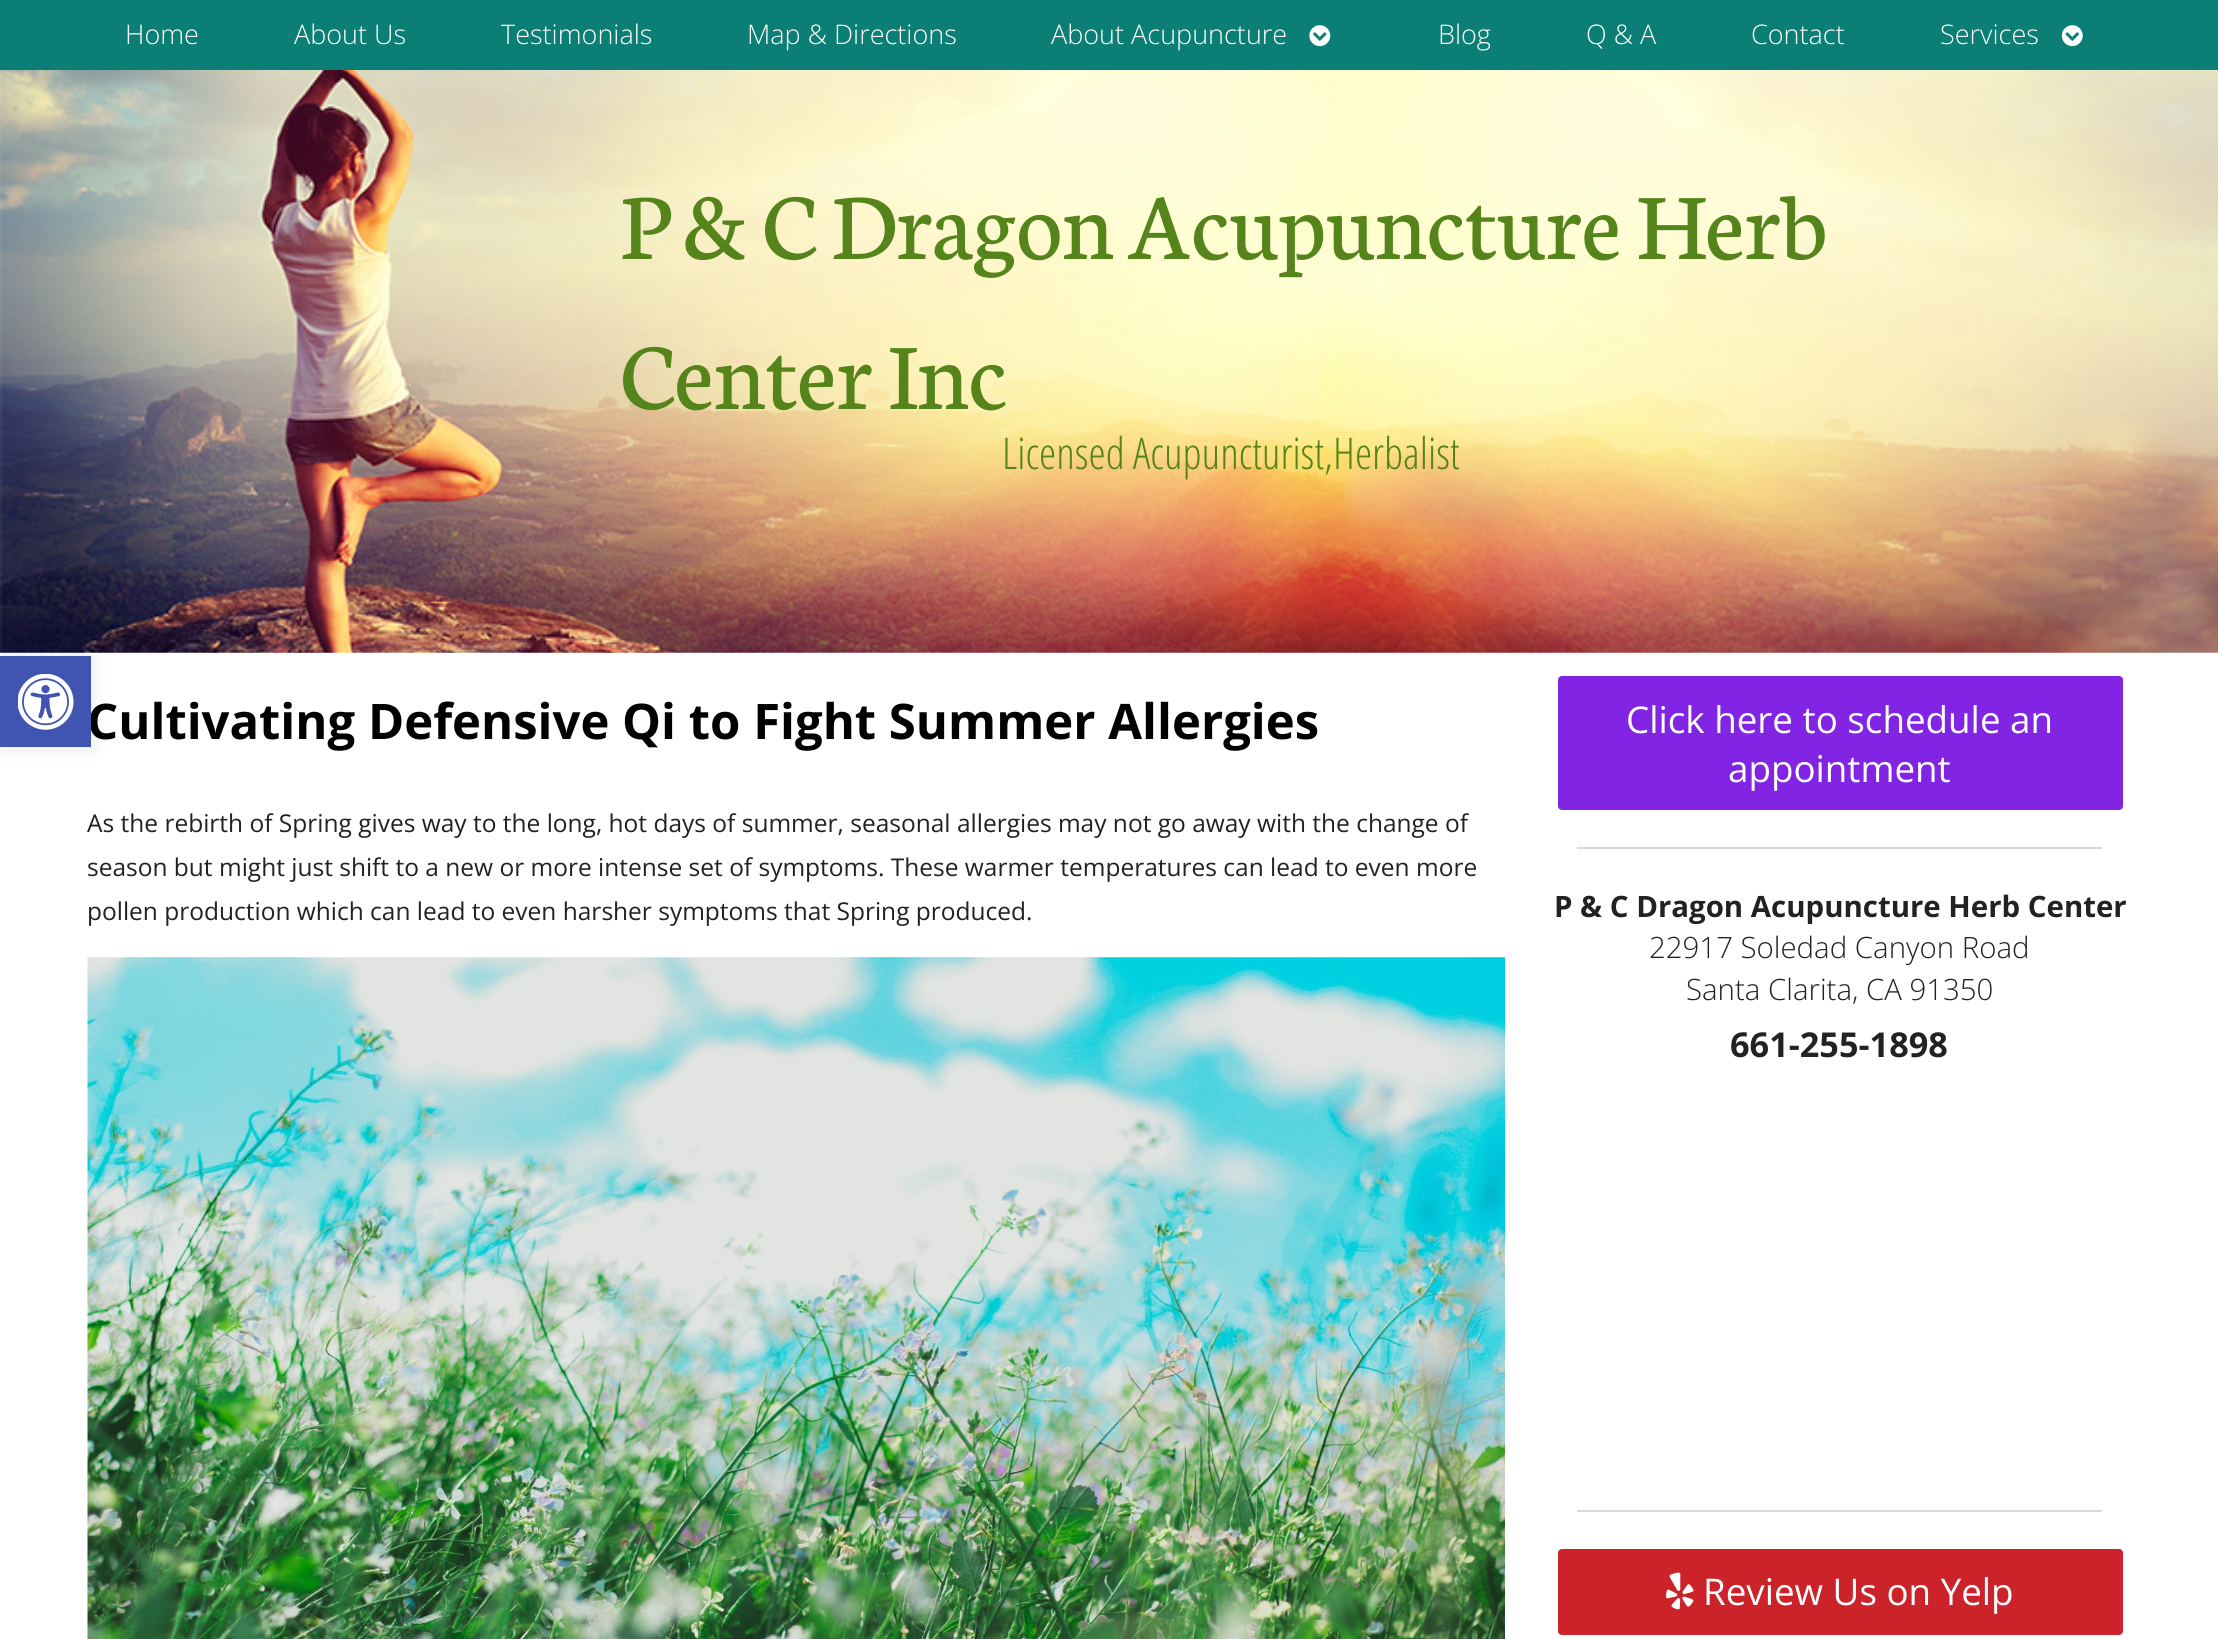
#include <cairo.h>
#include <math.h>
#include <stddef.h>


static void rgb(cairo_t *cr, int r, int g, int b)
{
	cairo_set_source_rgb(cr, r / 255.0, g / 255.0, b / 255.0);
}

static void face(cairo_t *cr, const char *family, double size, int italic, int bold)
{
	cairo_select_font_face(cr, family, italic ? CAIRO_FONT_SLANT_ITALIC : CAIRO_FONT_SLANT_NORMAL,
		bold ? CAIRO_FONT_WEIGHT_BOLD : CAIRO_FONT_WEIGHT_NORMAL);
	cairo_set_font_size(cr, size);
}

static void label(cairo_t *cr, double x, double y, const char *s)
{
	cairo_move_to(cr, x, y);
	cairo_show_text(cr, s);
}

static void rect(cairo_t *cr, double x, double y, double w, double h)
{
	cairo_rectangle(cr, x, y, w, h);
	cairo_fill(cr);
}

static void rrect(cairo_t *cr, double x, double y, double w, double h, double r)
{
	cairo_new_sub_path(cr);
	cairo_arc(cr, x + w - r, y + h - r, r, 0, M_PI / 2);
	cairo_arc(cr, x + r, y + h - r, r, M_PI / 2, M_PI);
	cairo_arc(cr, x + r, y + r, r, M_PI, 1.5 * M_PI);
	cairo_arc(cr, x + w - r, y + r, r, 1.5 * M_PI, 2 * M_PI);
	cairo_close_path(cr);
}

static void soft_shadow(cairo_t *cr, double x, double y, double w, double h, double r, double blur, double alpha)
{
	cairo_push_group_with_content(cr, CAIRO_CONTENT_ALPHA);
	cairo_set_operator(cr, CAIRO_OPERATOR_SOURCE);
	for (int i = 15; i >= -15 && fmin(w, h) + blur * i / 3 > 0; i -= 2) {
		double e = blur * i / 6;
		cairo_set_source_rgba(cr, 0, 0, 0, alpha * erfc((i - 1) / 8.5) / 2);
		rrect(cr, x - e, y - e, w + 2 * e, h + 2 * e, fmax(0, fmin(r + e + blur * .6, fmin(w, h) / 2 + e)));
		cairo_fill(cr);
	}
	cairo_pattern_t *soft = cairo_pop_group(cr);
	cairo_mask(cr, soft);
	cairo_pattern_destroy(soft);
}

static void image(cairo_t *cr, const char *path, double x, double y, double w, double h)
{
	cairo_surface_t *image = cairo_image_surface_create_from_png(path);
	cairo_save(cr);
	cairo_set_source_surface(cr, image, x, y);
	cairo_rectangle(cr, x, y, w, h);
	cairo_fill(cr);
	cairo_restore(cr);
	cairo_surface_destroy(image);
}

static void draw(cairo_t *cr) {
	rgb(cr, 255, 255, 255);
	cairo_paint(cr);
	image(cr, "image3.png", 0, 70, 2218, 583);
	rgb(cr, 0, 0, 0);
	soft_shadow(cr, 0, 656, 91, 91, 0, 9, 0.1);
	face(cr, "Open Sans", 49, 0, 1);
	rgb(cr, 0, 0, 0);
	label(cr, 87, 739, "Cultivating Defensive Qi to Fight Summer Allergies");
	rgb(cr, 64, 84, 178);
	rect(cr, 0, 656, 91, 91);
	image(cr, "image0.png", 18, 674, 56, 56);
	rgb(cr, 11, 127, 117);
	rect(cr, 0, 0, 2218, 70);
	face(cr, "Open Sans Light", 27, 0, 0);
	rgb(cr, 255, 255, 255);
	label(cr, 125, 44, "Home");
	label(cr, 294, 44, "About Us");
	label(cr, 501, 44, "Testimonials");
	label(cr, 747, 44, "Map & Directions");
	label(cr, 1051, 44, "About Acupuncture");
	image(cr, "image1.png", 1309, 25, 22, 22);
	label(cr, 1438, 44, "Blog");
	label(cr, 1586, 44, "Q & A");
	label(cr, 1751, 44, "Contact");
	label(cr, 1940, 44, "Services");
	image(cr, "image2.png", 2061, 25, 22, 22);
	face(cr, "Neuton", 100.25, 0, 0);
	rgb(cr, 84, 132, 26);
	label(cr, 620, 259, "P & C Dragon Acupuncture Herb");
	label(cr, 620, 409, "Center Inc");
	face(cr, "Open Sans Condensed Light", 43.75, 0, 0);
	label(cr, 1002, 469, "Licensed Acupuncturist,Herbalist");
	face(cr, "Open Sans", 24.5, 0, 0);
	rgb(cr, 34, 34, 34);
	label(cr, 87, 832, "As the rebirth of Spring gives way to the long, hot days of summer, seasonal allergies may not go away with the change of");
	label(cr, 87, 876, "season but might just shift to a new or more intense set of symptoms. These warmer temperatures can lead to even more");
	label(cr, 87, 920, "pollen production which can lead to even harsher symptoms that Spring produced.");
	image(cr, "image4.png", 87, 957, 1418, 682);
	rgb(cr, 130, 36, 227);
	rrect(cr, 1558, 676, 565, 134, 4);
	cairo_fill(cr);
	face(cr, "Open Sans", 36.75, 0, 0);
	rgb(cr, 255, 255, 255);
	label(cr, 1626, 733, "Click here to schedule an");
	label(cr, 1728, 782, "appointment");
	rgb(cr, 217, 217, 217);
	rect(cr, 1577, 847, 525, 2);
	face(cr, "Open Sans", 29.4, 0, 1);
	rgb(cr, 34, 34, 34);
	label(cr, 1554, 917, "P & C Dragon Acupuncture Herb Center");
	face(cr, "Open Sans Light", 29.4, 0, 0);
	label(cr, 1649, 958, "22917 Soledad Canyon Road");
	label(cr, 1686, 1000, "Santa Clarita, CA 91350");
	face(cr, "Open Sans", 34.25, 0, 1);
	label(cr, 1730, 1057, "661-255-1898");
	rgb(cr, 217, 217, 217);
	rect(cr, 1577, 1510, 525, 2);
	rgb(cr, 203, 35, 41);
	rrect(cr, 1558, 1549, 565, 86, 4);
	cairo_fill(cr);
	image(cr, "image5.png", 1666, 1572, 28, 38);
	face(cr, "Open Sans", 36.75, 0, 0);
	rgb(cr, 255, 255, 255);
	label(cr, 1703, 1605, "Review Us on Yelp");
}

int main(void) {
	cairo_surface_t *surface = cairo_image_surface_create(CAIRO_FORMAT_RGB24, 2218, 1639);
	cairo_t *cr = cairo_create(surface);
	cairo_font_options_t *options = cairo_font_options_create();
	cairo_font_options_set_hint_metrics(options, CAIRO_HINT_METRICS_OFF);
	cairo_font_options_set_hint_style(options, CAIRO_HINT_STYLE_NONE);
	cairo_set_font_options(cr, options);
	cairo_set_miter_limit(cr, 4);
	draw(cr);
	cairo_surface_write_to_png(surface, "render.png");
	cairo_font_options_destroy(options);
	cairo_destroy(cr);
	cairo_surface_destroy(surface);
	return 0;
}
